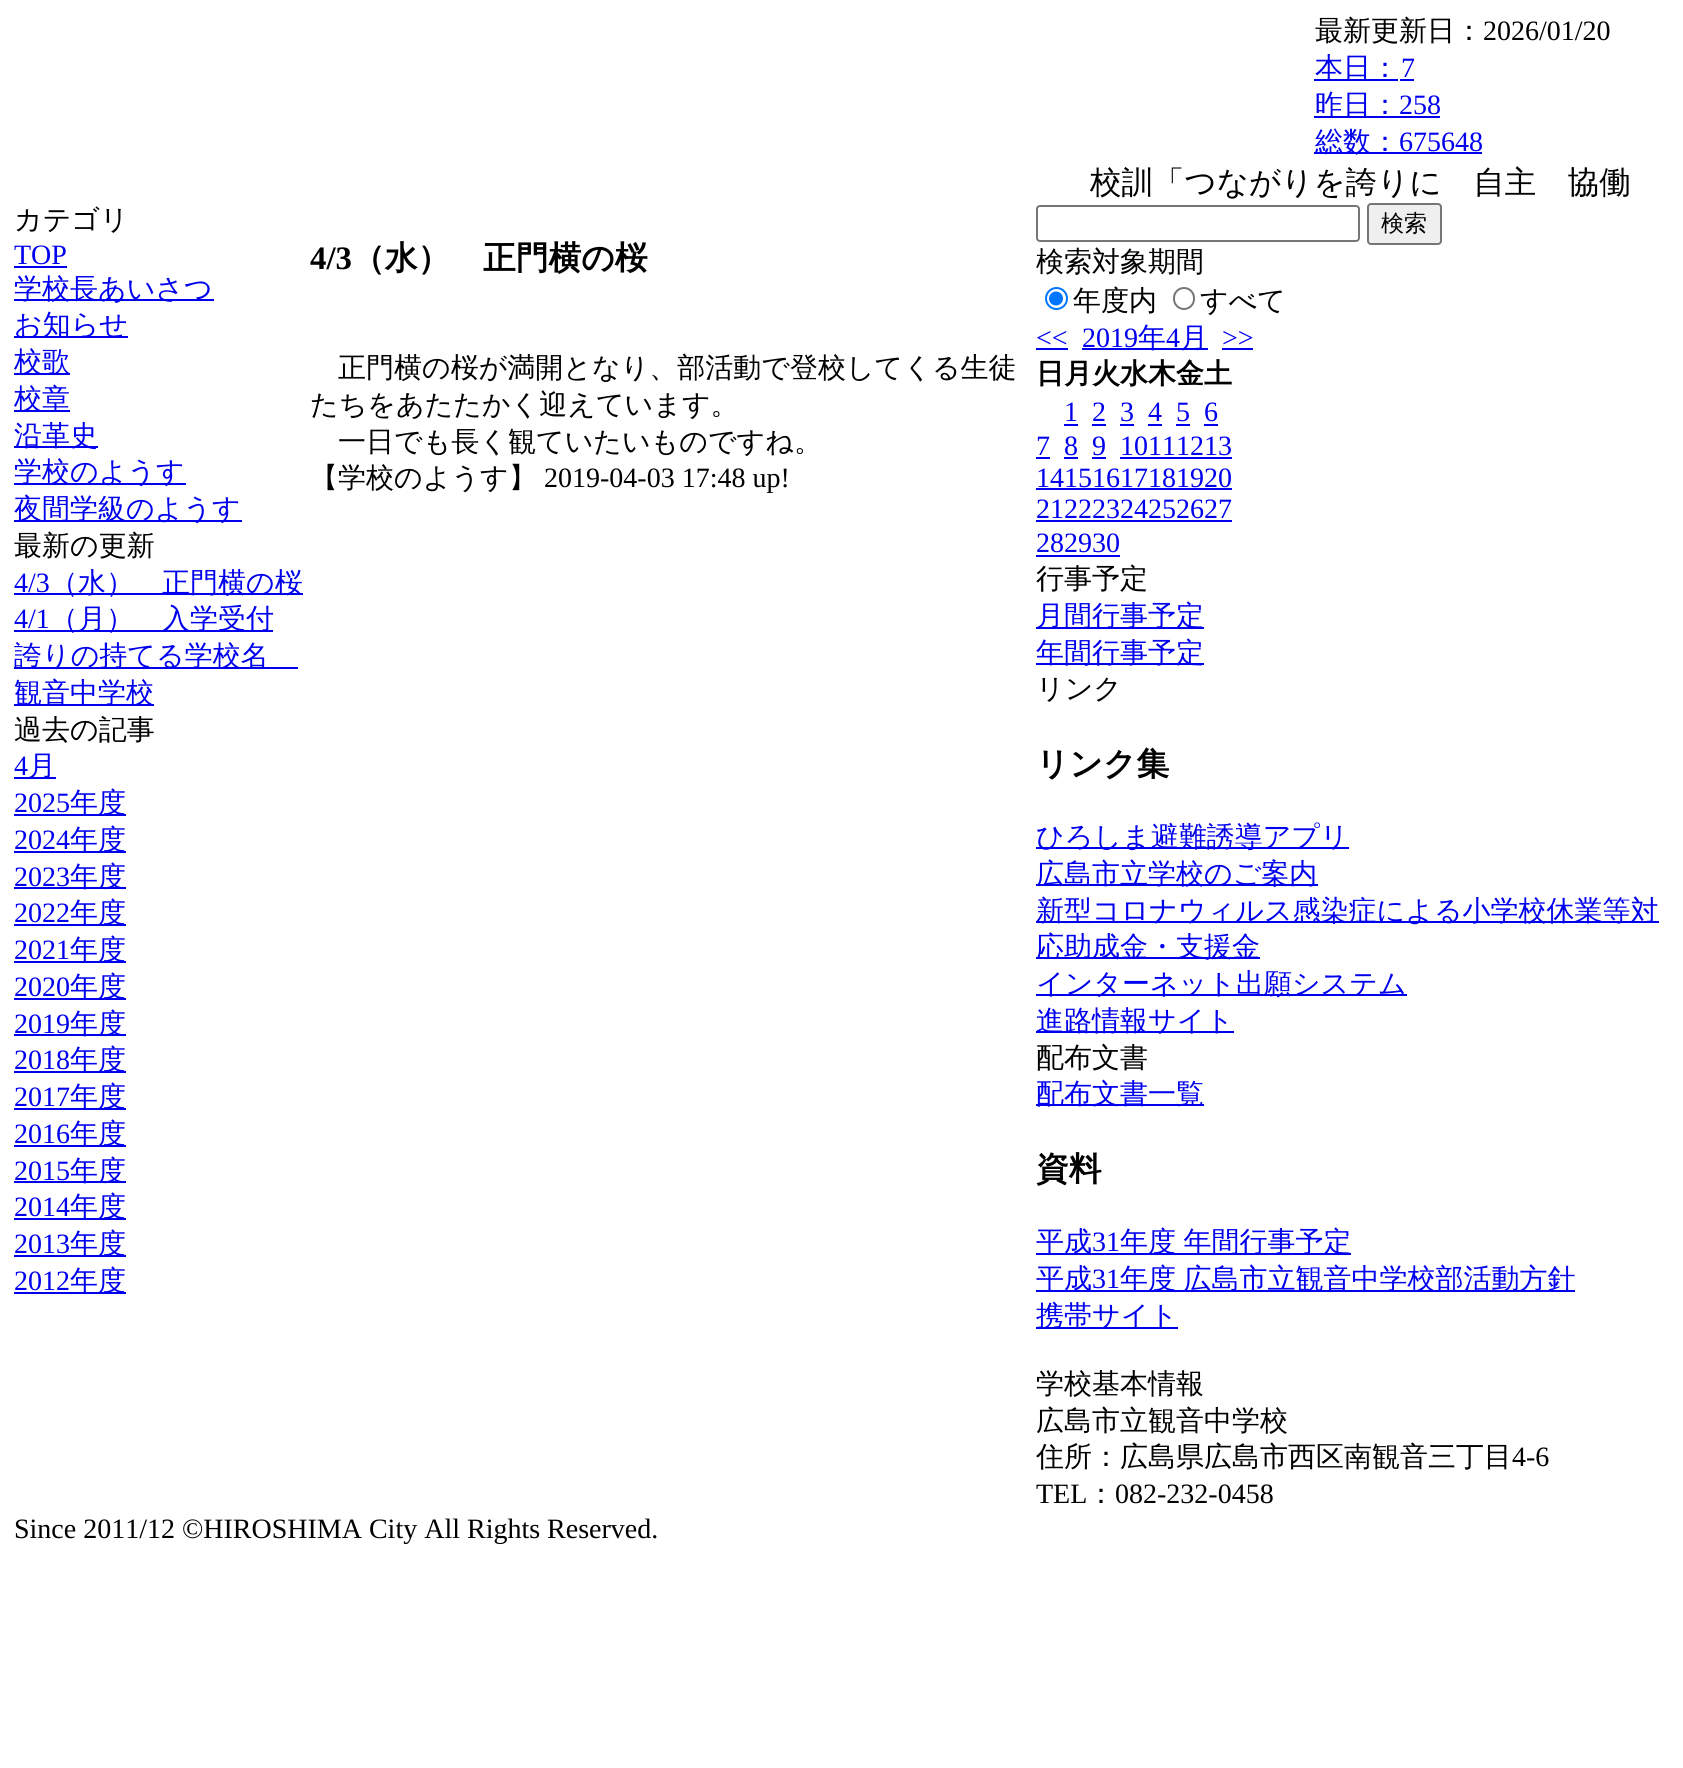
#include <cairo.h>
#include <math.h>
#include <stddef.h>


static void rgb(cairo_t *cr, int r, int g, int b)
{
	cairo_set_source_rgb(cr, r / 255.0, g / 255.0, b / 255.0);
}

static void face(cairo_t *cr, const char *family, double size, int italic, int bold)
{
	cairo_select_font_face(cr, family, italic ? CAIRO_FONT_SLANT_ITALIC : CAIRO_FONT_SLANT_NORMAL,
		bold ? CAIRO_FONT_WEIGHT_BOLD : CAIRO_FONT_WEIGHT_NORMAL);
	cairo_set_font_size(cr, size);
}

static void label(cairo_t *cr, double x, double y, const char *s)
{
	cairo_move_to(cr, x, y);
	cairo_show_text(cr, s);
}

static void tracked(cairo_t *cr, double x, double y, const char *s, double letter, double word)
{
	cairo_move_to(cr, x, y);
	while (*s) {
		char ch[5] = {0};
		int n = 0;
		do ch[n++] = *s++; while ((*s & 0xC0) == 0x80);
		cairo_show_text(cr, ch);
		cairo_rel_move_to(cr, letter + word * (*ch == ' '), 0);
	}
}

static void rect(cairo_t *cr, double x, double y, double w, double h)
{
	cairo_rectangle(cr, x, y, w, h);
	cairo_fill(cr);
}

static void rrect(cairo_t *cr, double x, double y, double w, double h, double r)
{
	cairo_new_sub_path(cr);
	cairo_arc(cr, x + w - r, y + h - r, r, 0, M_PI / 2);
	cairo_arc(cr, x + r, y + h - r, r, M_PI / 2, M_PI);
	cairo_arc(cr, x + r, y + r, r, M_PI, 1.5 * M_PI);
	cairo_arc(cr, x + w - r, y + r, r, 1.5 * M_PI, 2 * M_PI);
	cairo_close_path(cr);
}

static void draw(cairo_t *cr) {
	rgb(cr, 255, 255, 255);
	cairo_paint(cr);
	face(cr, "WenQuanYi Zen Hei Medium", 28, 0, 0);
	rgb(cr, 0, 0, 0);
	label(cr, 1315, 40, "最新更新日：");
	face(cr, "Liberation Serif", 28, 0, 0);
	label(cr, 1483, 40, "2026/01/20");
	rgb(cr, 0, 0, 238);
	rect(cr, 1314, 79, 84, 2);
	face(cr, "WenQuanYi Zen Hei Medium", 28, 0, 0);
	label(cr, 1315, 77, "本日：");
	face(cr, "Liberation Serif", 28, 0, 0);
	label(cr, 1401, 77, "7");
	rect(cr, 1400, 79, 14, 2);
	rect(cr, 1314, 116, 126, 2);
	face(cr, "WenQuanYi Zen Hei Medium", 28, 0, 0);
	label(cr, 1315, 114, "昨日：");
	face(cr, "Liberation Serif", 28, 0, 0);
	label(cr, 1399, 114, "258");
	rect(cr, 1314, 152, 168, 2);
	face(cr, "WenQuanYi Zen Hei Medium", 28, 0, 0);
	label(cr, 1315, 151, "総数：");
	face(cr, "Liberation Serif", 28, 0, 0);
	label(cr, 1399, 151, "675648");
	face(cr, "WenQuanYi Zen Hei Medium", 31.5, 0, 0);
	rgb(cr, 0, 0, 0);
	label(cr, 1090, 193, "校訓「つながりを誇りに　自主　協働");
	face(cr, "WenQuanYi Zen Hei Medium", 28, 0, 0);
	label(cr, 14, 229, "カテゴリ");
	face(cr, "Liberation Serif", 28, 0, 0);
	rgb(cr, 0, 0, 238);
	label(cr, 14, 264, "TOP");
	rect(cr, 14, 266, 53, 2);
	rect(cr, 14, 299, 200, 2);
	face(cr, "WenQuanYi Zen Hei Medium", 28, 0, 0);
	label(cr, 14, 298, "学校長あいさつ");
	rect(cr, 14, 336, 114, 2);
	label(cr, 14, 334, "お知らせ");
	rect(cr, 14, 373, 56, 2);
	label(cr, 14, 371, "校歌");
	rect(cr, 14, 410, 56, 2);
	label(cr, 14, 408, "校章");
	rect(cr, 14, 446, 84, 2);
	label(cr, 14, 445, "沿革史");
	rect(cr, 14, 483, 172, 2);
	label(cr, 14, 481, "学校のようす");
	rect(cr, 14, 520, 228, 2);
	label(cr, 14, 518, "夜間学級のようす");
	rgb(cr, 0, 0, 0);
	label(cr, 14, 555, "最新の更新");
	face(cr, "Liberation Serif", 28, 0, 0);
	rgb(cr, 0, 0, 238);
	label(cr, 14, 592, "4/3");
	rect(cr, 14, 593, 289, 2);
	face(cr, "WenQuanYi Zen Hei Medium", 28, 0, 0);
	label(cr, 50, 592, "（水）　正門横の桜");
	face(cr, "Liberation Serif", 28, 0, 0);
	label(cr, 14, 628, "4/1");
	rect(cr, 14, 630, 259, 2);
	face(cr, "WenQuanYi Zen Hei Medium", 28, 0, 0);
	label(cr, 50, 628, "（月）　入学受付");
	rect(cr, 14, 667, 284, 2);
	label(cr, 14, 665, "誇りの持てる学校名");
	rect(cr, 14, 704, 140, 2);
	label(cr, 14, 702, "観音中学校");
	rgb(cr, 0, 0, 0);
	label(cr, 14, 739, "過去の記事");
	face(cr, "Liberation Serif", 28, 0, 0);
	rgb(cr, 0, 0, 238);
	label(cr, 14, 775, "4");
	rect(cr, 14, 777, 42, 2);
	face(cr, "WenQuanYi Zen Hei Medium", 28, 0, 0);
	label(cr, 28, 775, "月");
	face(cr, "Liberation Serif", 28, 0, 0);
	label(cr, 14, 812, "2025");
	rect(cr, 14, 814, 112, 2);
	face(cr, "WenQuanYi Zen Hei Medium", 28, 0, 0);
	label(cr, 70, 812, "年度");
	face(cr, "Liberation Serif", 28, 0, 0);
	label(cr, 14, 849, "2024");
	rect(cr, 14, 851, 112, 2);
	face(cr, "WenQuanYi Zen Hei Medium", 28, 0, 0);
	label(cr, 70, 849, "年度");
	face(cr, "Liberation Serif", 28, 0, 0);
	label(cr, 14, 886, "2023");
	rect(cr, 14, 887, 112, 2);
	face(cr, "WenQuanYi Zen Hei Medium", 28, 0, 0);
	label(cr, 70, 886, "年度");
	face(cr, "Liberation Serif", 28, 0, 0);
	label(cr, 14, 922, "2022");
	rect(cr, 14, 924, 112, 2);
	face(cr, "WenQuanYi Zen Hei Medium", 28, 0, 0);
	label(cr, 70, 922, "年度");
	face(cr, "Liberation Serif", 28, 0, 0);
	label(cr, 14, 959, "2021");
	rect(cr, 14, 961, 112, 2);
	face(cr, "WenQuanYi Zen Hei Medium", 28, 0, 0);
	label(cr, 70, 959, "年度");
	face(cr, "Liberation Serif", 28, 0, 0);
	label(cr, 14, 996, "2020");
	rect(cr, 14, 998, 112, 2);
	face(cr, "WenQuanYi Zen Hei Medium", 28, 0, 0);
	label(cr, 70, 996, "年度");
	face(cr, "Liberation Serif", 28, 0, 0);
	label(cr, 14, 1033, "2019");
	rect(cr, 14, 1034, 112, 2);
	face(cr, "WenQuanYi Zen Hei Medium", 28, 0, 0);
	label(cr, 70, 1033, "年度");
	face(cr, "Liberation Serif", 28, 0, 0);
	label(cr, 14, 1069, "2018");
	rect(cr, 14, 1071, 112, 2);
	face(cr, "WenQuanYi Zen Hei Medium", 28, 0, 0);
	label(cr, 70, 1069, "年度");
	face(cr, "Liberation Serif", 28, 0, 0);
	label(cr, 14, 1106, "2017");
	rect(cr, 14, 1108, 112, 2);
	face(cr, "WenQuanYi Zen Hei Medium", 28, 0, 0);
	label(cr, 70, 1106, "年度");
	face(cr, "Liberation Serif", 28, 0, 0);
	label(cr, 14, 1143, "2016");
	rect(cr, 14, 1145, 112, 2);
	face(cr, "WenQuanYi Zen Hei Medium", 28, 0, 0);
	label(cr, 70, 1143, "年度");
	face(cr, "Liberation Serif", 28, 0, 0);
	label(cr, 14, 1180, "2015");
	rect(cr, 14, 1181, 112, 2);
	face(cr, "WenQuanYi Zen Hei Medium", 28, 0, 0);
	label(cr, 70, 1180, "年度");
	face(cr, "Liberation Serif", 28, 0, 0);
	label(cr, 14, 1216, "2014");
	rect(cr, 14, 1218, 112, 2);
	face(cr, "WenQuanYi Zen Hei Medium", 28, 0, 0);
	label(cr, 70, 1216, "年度");
	face(cr, "Liberation Serif", 28, 0, 0);
	label(cr, 14, 1253, "2013");
	rect(cr, 14, 1255, 112, 2);
	face(cr, "WenQuanYi Zen Hei Medium", 28, 0, 0);
	label(cr, 70, 1253, "年度");
	face(cr, "Liberation Serif", 28, 0, 0);
	label(cr, 14, 1290, "2012");
	rect(cr, 14, 1292, 112, 2);
	face(cr, "WenQuanYi Zen Hei Medium", 28, 0, 0);
	label(cr, 70, 1290, "年度");
	face(cr, "Liberation Serif", 32.75, 0, 1);
	rgb(cr, 0, 0, 0);
	label(cr, 310, 269, "4/3");
	face(cr, "WenQuanYi Zen Hei", 32.75, 0, 1);
	label(cr, 352, 269, "（水）　正門横の桜");
	face(cr, "WenQuanYi Zen Hei Medium", 28, 0, 0);
	label(cr, 338, 377, "正門横の桜が満開となり、部活動で登校してくる生徒");
	label(cr, 310, 414, "たちをあたたかく迎えています。");
	label(cr, 338, 451, "一日でも長く観ていたいものですね。");
	label(cr, 310, 487, "【学校のようす】");
	face(cr, "Liberation Serif", 28, 0, 0);
	label(cr, 544, 487, "2019-04-03 17:48 up!");
	rrect(cr, 1037, 206, 322, 35, 3);
	rgb(cr, 118, 118, 118);
	cairo_stroke(cr);
	rgb(cr, 239, 239, 239);
	rrect(cr, 1368, 204, 73, 40, 3);
	cairo_fill_preserve(cr);
	rgb(cr, 118, 118, 118);
	cairo_stroke(cr);
	face(cr, "WenQuanYi Zen Hei Medium", 23, 0, 0);
	rgb(cr, 0, 0, 0);
	label(cr, 1381, 231, "検索");
	face(cr, "WenQuanYi Zen Hei Medium", 28, 0, 0);
	label(cr, 1036, 271, "検索対象期間");
	cairo_new_path(cr);
	cairo_arc(cr, 1056.5, 298.5, 10.5, 0, 2 * M_PI);
	rgb(cr, 0, 117, 255);
	cairo_stroke(cr);
	cairo_arc(cr, 1056, 298.5, 7, 0, 2 * M_PI);
	cairo_fill(cr);
	rgb(cr, 0, 0, 0);
	label(cr, 1073, 310, "年度内");
	rrect(cr, 1174, 288, 20, 21, 10);
	rgb(cr, 118, 118, 118);
	cairo_stroke(cr);
	rgb(cr, 0, 0, 0);
	label(cr, 1200, 310, "すべて");
	face(cr, "Liberation Serif", 28, 0, 0);
	rgb(cr, 0, 0, 238);
	label(cr, 1036, 347, "<<");
	rect(cr, 1036, 348, 32, 2);
	label(cr, 1082, 347, "2019");
	rect(cr, 1082, 348, 126, 2);
	face(cr, "WenQuanYi Zen Hei Medium", 28, 0, 0);
	label(cr, 1138, 347, "年");
	face(cr, "Liberation Serif", 28, 0, 0);
	label(cr, 1166, 347, "4");
	face(cr, "WenQuanYi Zen Hei Medium", 28, 0, 0);
	label(cr, 1180, 347, "月");
	face(cr, "Liberation Serif", 28, 0, 0);
	label(cr, 1222, 347, ">>");
	rect(cr, 1222, 348, 31, 2);
	face(cr, "WenQuanYi Zen Hei", 28, 0, 1);
	rgb(cr, 0, 0, 0);
	label(cr, 1036, 383, "日月火水木金土");
	face(cr, "Liberation Serif", 28, 0, 0);
	rgb(cr, 0, 0, 238);
	label(cr, 1064, 421, "1");
	rect(cr, 1064, 424, 14, 2);
	label(cr, 1092, 421, "2");
	rect(cr, 1092, 424, 14, 2);
	label(cr, 1120, 421, "3");
	rect(cr, 1120, 424, 14, 2);
	label(cr, 1148, 421, "4");
	rect(cr, 1148, 424, 14, 2);
	label(cr, 1176, 421, "5");
	rect(cr, 1176, 424, 14, 2);
	label(cr, 1204, 421, "6");
	rect(cr, 1204, 424, 14, 2);
	label(cr, 1036, 455, "7");
	rect(cr, 1036, 457, 14, 2);
	label(cr, 1064, 455, "8");
	rect(cr, 1064, 457, 14, 2);
	label(cr, 1092, 455, "9");
	rect(cr, 1092, 457, 14, 2);
	label(cr, 1120, 455, "10111213");
	rect(cr, 1120, 457, 112, 2);
	label(cr, 1036, 487, "14151617181920");
	rect(cr, 1036, 488, 196, 2);
	label(cr, 1036, 518, "21222324252627");
	rect(cr, 1036, 520, 196, 2);
	label(cr, 1036, 552, "282930");
	rect(cr, 1036, 555, 84, 2);
	face(cr, "WenQuanYi Zen Hei Medium", 28, 0, 0);
	rgb(cr, 0, 0, 0);
	label(cr, 1036, 588, "行事予定");
	rgb(cr, 0, 0, 238);
	rect(cr, 1036, 627, 168, 2);
	label(cr, 1036, 625, "月間行事予定");
	rect(cr, 1036, 663, 168, 2);
	label(cr, 1036, 662, "年間行事予定");
	rgb(cr, 0, 0, 0);
	label(cr, 1036, 698, "リンク");
	face(cr, "WenQuanYi Zen Hei", 32.75, 0, 1);
	label(cr, 1036, 775, "リンク集");
	rgb(cr, 0, 0, 238);
	rect(cr, 1036, 847, 313, 2);
	face(cr, "WenQuanYi Zen Hei Medium", 28, 0, 0);
	label(cr, 1036, 846, "ひろしま避難誘導アプリ");
	rect(cr, 1036, 884, 282, 2);
	label(cr, 1036, 883, "広島市立学校のご案内");
	rect(cr, 1036, 921, 623, 2);
	label(cr, 1036, 920, "新型コロナウィルス感染症による小学校休業等対");
	rect(cr, 1036, 957, 224, 2);
	label(cr, 1036, 956, "応助成金・支援金");
	rect(cr, 1036, 994, 371, 2);
	label(cr, 1036, 993, "インターネット出願システム");
	rect(cr, 1036, 1031, 198, 2);
	label(cr, 1036, 1030, "進路情報サイト");
	rgb(cr, 0, 0, 0);
	label(cr, 1036, 1067, "配布文書");
	rgb(cr, 0, 0, 238);
	rect(cr, 1036, 1104, 168, 2);
	label(cr, 1036, 1103, "配布文書一覧");
	face(cr, "WenQuanYi Zen Hei", 32.75, 0, 1);
	rgb(cr, 0, 0, 0);
	label(cr, 1036, 1180, "資料");
	rgb(cr, 0, 0, 238);
	rect(cr, 1036, 1253, 315, 2);
	face(cr, "WenQuanYi Zen Hei Medium", 28, 0, 0);
	label(cr, 1036, 1251, "平成");
	face(cr, "Liberation Serif", 28, 0, 0);
	label(cr, 1092, 1251, "31");
	face(cr, "WenQuanYi Zen Hei Medium", 28, 0, 0);
	tracked(cr, 1120, 1251, "年度 年間行事予定", 0, -1);
	rect(cr, 1036, 1290, 539, 2);
	label(cr, 1036, 1288, "平成");
	face(cr, "Liberation Serif", 28, 0, 0);
	label(cr, 1092, 1288, "31");
	face(cr, "WenQuanYi Zen Hei Medium", 28, 0, 0);
	tracked(cr, 1120, 1288, "年度 広島市立観音中学校部活動方針", 0, -1);
	rect(cr, 1036, 1327, 142, 2);
	label(cr, 1036, 1325, "携帯サイト");
	rgb(cr, 0, 0, 0);
	label(cr, 1036, 1393, "学校基本情報");
	label(cr, 1036, 1430, "広島市立観音中学校");
	label(cr, 1036, 1466, "住所：広島県広島市西区南観音三丁目");
	face(cr, "Liberation Serif", 28, 0, 0);
	label(cr, 1512, 1466, "4-6");
	label(cr, 1036, 1503, "TEL");
	face(cr, "WenQuanYi Zen Hei Medium", 28, 0, 0);
	label(cr, 1087, 1503, "：");
	face(cr, "Liberation Serif", 28, 0, 0);
	label(cr, 1115, 1503, "082-232-0458");
	label(cr, 14, 1538, "Since 2011/12 ©HIROSHIMA City All Rights Reserved.");
}

int main(void) {
	cairo_surface_t *surface = cairo_image_surface_create(CAIRO_FORMAT_RGB24, 1683, 1768);
	cairo_t *cr = cairo_create(surface);
	cairo_font_options_t *options = cairo_font_options_create();
	cairo_font_options_set_hint_metrics(options, CAIRO_HINT_METRICS_OFF);
	cairo_font_options_set_hint_style(options, CAIRO_HINT_STYLE_NONE);
	cairo_set_font_options(cr, options);
	cairo_set_miter_limit(cr, 4);
	draw(cr);
	cairo_surface_write_to_png(surface, "render.png");
	cairo_font_options_destroy(options);
	cairo_destroy(cr);
	cairo_surface_destroy(surface);
	return 0;
}
